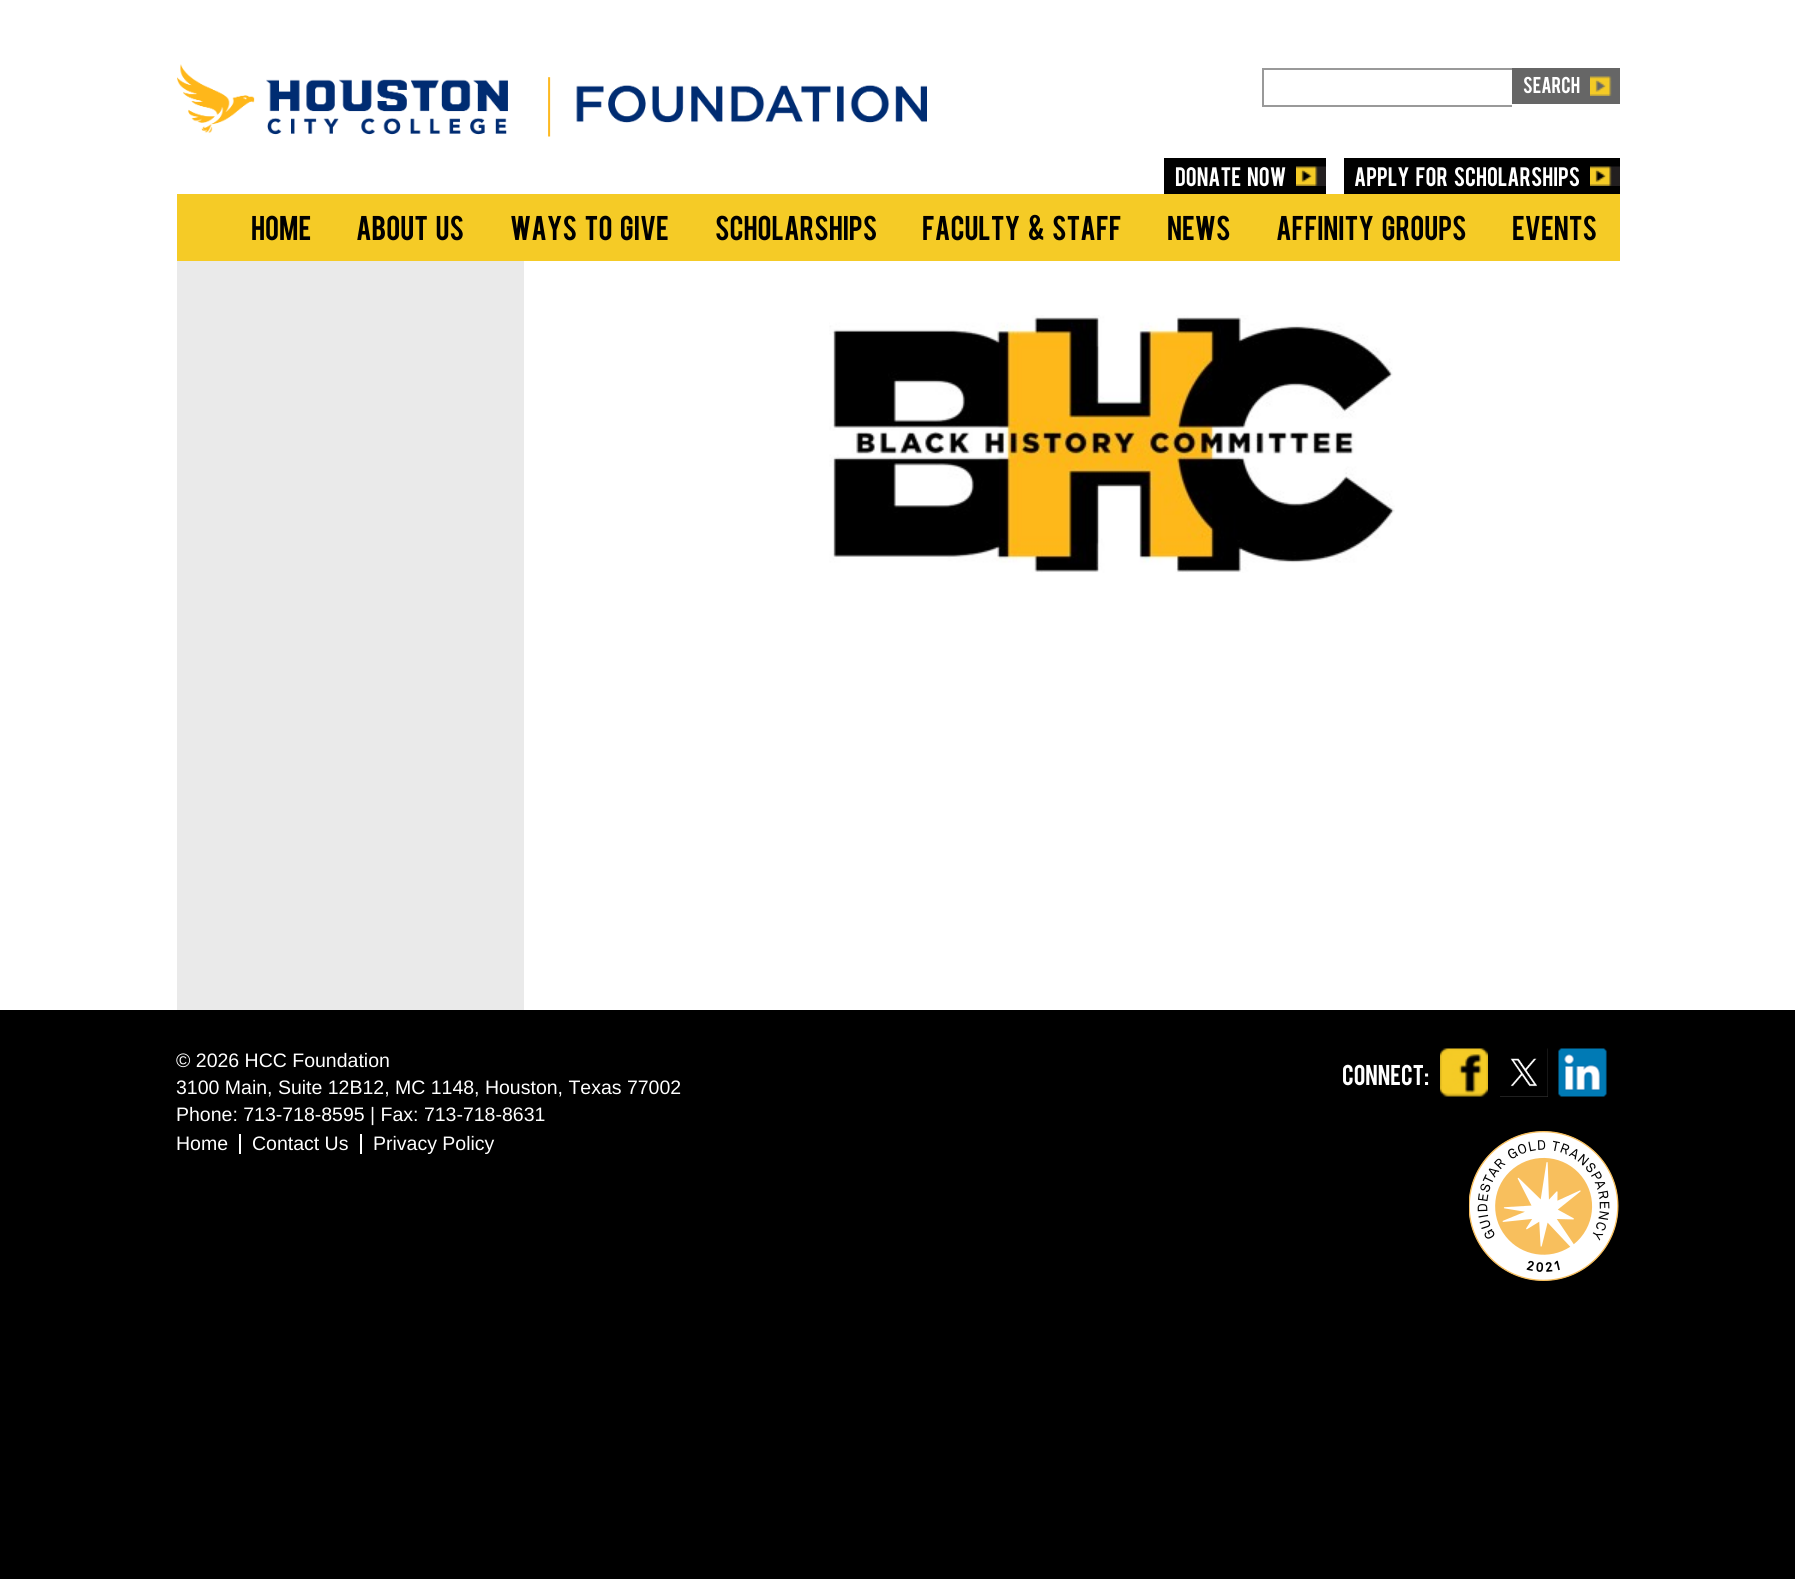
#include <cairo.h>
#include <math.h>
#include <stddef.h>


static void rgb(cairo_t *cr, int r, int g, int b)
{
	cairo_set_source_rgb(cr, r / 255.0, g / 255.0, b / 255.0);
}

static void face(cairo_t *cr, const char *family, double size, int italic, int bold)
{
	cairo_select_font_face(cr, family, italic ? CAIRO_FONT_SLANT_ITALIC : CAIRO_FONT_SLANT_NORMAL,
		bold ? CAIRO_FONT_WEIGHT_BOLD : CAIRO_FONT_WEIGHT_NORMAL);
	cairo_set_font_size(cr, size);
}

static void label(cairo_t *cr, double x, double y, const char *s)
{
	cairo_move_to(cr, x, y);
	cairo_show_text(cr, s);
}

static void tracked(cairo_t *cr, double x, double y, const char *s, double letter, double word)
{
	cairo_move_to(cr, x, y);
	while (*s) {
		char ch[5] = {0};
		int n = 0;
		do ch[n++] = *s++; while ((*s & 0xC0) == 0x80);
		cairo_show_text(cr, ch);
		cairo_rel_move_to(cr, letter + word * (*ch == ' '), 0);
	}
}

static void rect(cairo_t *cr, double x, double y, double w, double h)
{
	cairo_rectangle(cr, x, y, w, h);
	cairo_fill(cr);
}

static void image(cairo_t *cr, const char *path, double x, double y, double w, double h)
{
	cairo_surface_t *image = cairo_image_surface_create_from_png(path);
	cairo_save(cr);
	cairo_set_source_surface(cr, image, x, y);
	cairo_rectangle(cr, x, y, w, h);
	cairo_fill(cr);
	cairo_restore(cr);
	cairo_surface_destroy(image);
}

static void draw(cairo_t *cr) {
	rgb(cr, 0, 0, 0);
	cairo_paint(cr);
	rgb(cr, 255, 255, 255);
	rect(cr, 0, 0, 1795, 1010);
	image(cr, "image0.png", 177, 64, 750, 73);
	rgb(cr, 153, 153, 153);
	rect(cr, 1262, 68, 250, 2);
	rect(cr, 1262, 105, 250, 2);
	rect(cr, 1262, 68, 2, 39);
	rgb(cr, 102, 102, 102);
	rect(cr, 1512, 68, 108, 36);
	image(cr, "image1.png", 1590, 76, 22, 20);
	face(cr, "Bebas", 18, 0, 0);
	rgb(cr, 255, 255, 255);
	label(cr, 1523, 93, "SEARCH");
	rgb(cr, 0, 0, 0);
	rect(cr, 1164, 158, 162, 36);
	image(cr, "image2.png", 1296, 166, 30, 20);
	face(cr, "Bebas", 21, 0, 0);
	rgb(cr, 255, 255, 255);
	tracked(cr, 1175, 186, "DONATE NOW", 0, 4);
	rgb(cr, 0, 0, 0);
	rect(cr, 1344, 158, 276, 36);
	image(cr, "image2.png", 1590, 166, 30, 20);
	rgb(cr, 255, 255, 255);
	tracked(cr, 1354, 186, "APPLY FOR SCHOLARSHIPS", 0, 4);
	rgb(cr, 245, 203, 38);
	rect(cr, 177, 194, 1443, 67);
	face(cr, "Bebas", 27, 0, 0);
	rgb(cr, 0, 0, 0);
	label(cr, 251, 240, "HOME");
	tracked(cr, 356, 240, "ABOUT US", 0, 5);
	tracked(cr, 510, 240, "WAYS TO GIVE", 0, 5);
	label(cr, 715, 240, "SCHOLARSHIPS");
	tracked(cr, 922, 240, "FACULTY & STAFF", 0, 5);
	label(cr, 1167, 240, "NEWS");
	tracked(cr, 1276, 240, "AFFINITY GROUPS", 0, 5);
	label(cr, 1512, 240, "EVENTS");
	rgb(cr, 234, 234, 234);
	rect(cr, 177, 261, 347, 749);
	image(cr, "image3.png", 829, 315, 566, 258);
	face(cr, "Liberation Sans", 19.5, 0, 0);
	rgb(cr, 255, 255, 255);
	label(cr, 176, 1067, "© 2026 HCC Foundation");
	label(cr, 176, 1094, "3100 Main, Suite 12B12, MC 1148, Houston, Texas 77002");
	label(cr, 176, 1121, "Phone: 713-718-8595 | Fax: 713-718-8631");
	rect(cr, 239, 1134, 2, 20);
	label(cr, 176, 1150, "Home");
	rect(cr, 360, 1134, 2, 20);
	label(cr, 252, 1150, "Contact Us");
	label(cr, 373, 1150, "Privacy Policy");
	face(cr, "Bebas", 22.5, 0, 0);
	label(cr, 1342, 1085, "Connect:");
	image(cr, "image4.png", 1440, 1048, 48, 49);
	image(cr, "image5.png", 1500, 1048, 48, 49);
	image(cr, "image6.png", 1558, 1048, 49, 49);
	image(cr, "image7.png", 1469, 1131, 150, 150);
}

int main(void) {
	cairo_surface_t *surface = cairo_image_surface_create(CAIRO_FORMAT_RGB24, 1795, 1579);
	cairo_t *cr = cairo_create(surface);
	cairo_font_options_t *options = cairo_font_options_create();
	cairo_font_options_set_hint_metrics(options, CAIRO_HINT_METRICS_OFF);
	cairo_font_options_set_hint_style(options, CAIRO_HINT_STYLE_NONE);
	cairo_set_font_options(cr, options);
	cairo_set_miter_limit(cr, 4);
	draw(cr);
	cairo_surface_write_to_png(surface, "render.png");
	cairo_font_options_destroy(options);
	cairo_destroy(cr);
	cairo_surface_destroy(surface);
	return 0;
}
